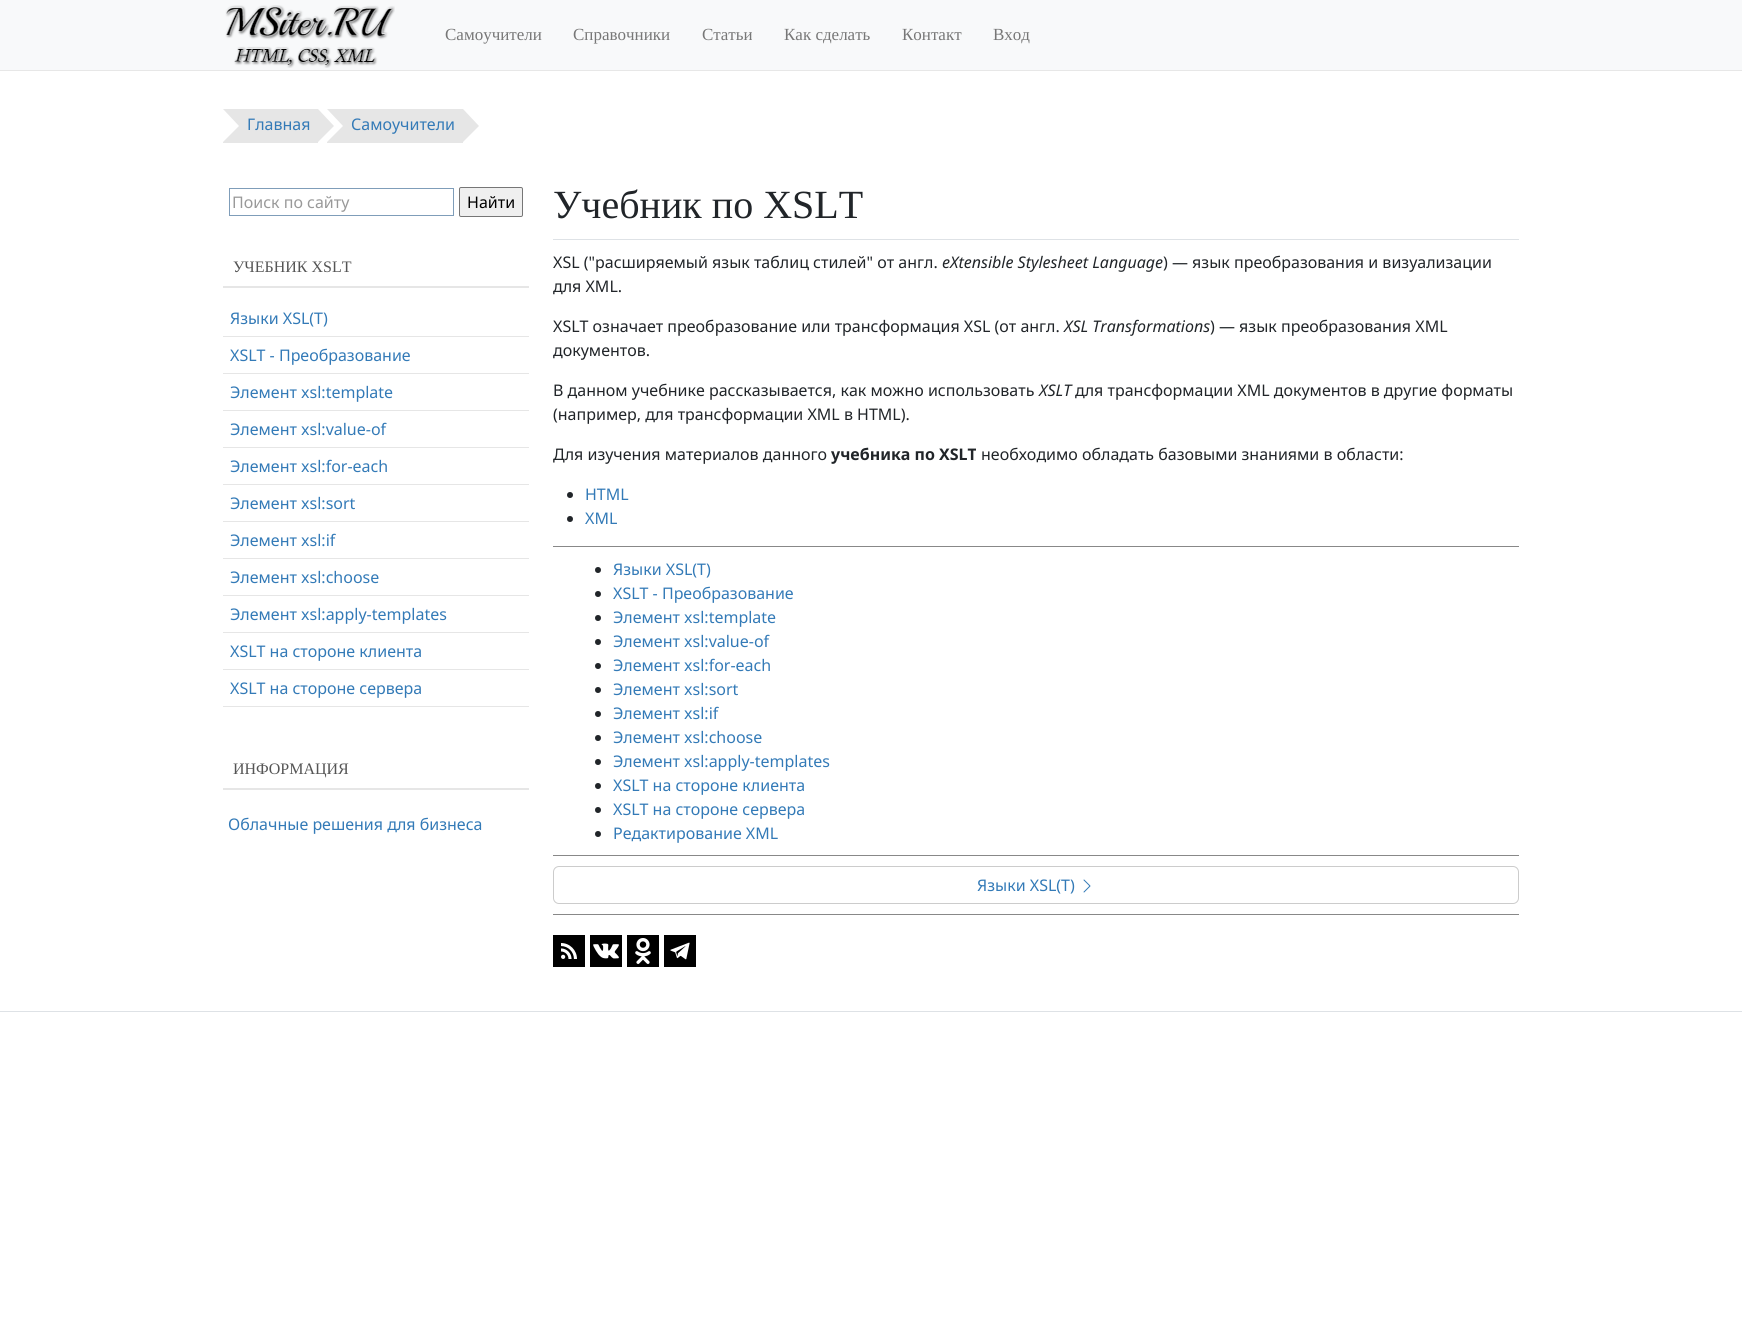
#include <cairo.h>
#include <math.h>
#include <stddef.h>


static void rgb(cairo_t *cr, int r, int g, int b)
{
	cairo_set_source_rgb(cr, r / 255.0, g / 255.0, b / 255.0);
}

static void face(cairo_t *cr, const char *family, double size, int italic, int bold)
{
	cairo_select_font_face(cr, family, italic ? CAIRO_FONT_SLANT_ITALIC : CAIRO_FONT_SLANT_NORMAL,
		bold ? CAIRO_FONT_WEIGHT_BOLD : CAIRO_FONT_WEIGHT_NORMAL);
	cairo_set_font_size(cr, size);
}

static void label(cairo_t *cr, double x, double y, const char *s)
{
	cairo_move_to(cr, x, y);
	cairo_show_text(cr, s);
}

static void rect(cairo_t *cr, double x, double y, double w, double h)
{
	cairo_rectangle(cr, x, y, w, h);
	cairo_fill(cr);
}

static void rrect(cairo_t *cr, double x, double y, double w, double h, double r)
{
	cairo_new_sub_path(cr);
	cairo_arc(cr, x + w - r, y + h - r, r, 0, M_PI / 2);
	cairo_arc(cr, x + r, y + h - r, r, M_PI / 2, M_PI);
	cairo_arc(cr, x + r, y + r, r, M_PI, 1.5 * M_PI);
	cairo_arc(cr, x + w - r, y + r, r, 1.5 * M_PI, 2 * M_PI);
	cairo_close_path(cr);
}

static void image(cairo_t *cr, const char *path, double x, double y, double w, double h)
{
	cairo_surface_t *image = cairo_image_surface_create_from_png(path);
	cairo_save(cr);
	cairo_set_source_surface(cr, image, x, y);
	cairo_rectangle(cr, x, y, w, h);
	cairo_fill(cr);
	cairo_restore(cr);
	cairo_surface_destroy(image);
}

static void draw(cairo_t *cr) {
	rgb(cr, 255, 255, 255);
	cairo_paint(cr);
	rgb(cr, 248, 249, 250);
	rect(cr, 0, 0, 1742, 70);
	rgb(cr, 231, 231, 231);
	rect(cr, 0, 70, 1742, 1);
	image(cr, "image0.png", 225, 5, 170, 63);
	face(cr, "Liberation Serif", 17, 0, 0);
	rgb(cr, 119, 119, 119);
	label(cr, 445, 40, "Самоучители");
	label(cr, 573, 40, "Справочники");
	label(cr, 702, 40, "Статьи");
	label(cr, 784, 40, "Как сделать");
	label(cr, 902, 40, "Контакт");
	label(cr, 993, 40, "Вход");
	rgb(cr, 230, 230, 230);
	rect(cr, 223, 109, 95, 34);
	rgb(cr, 255, 255, 255);
	cairo_new_path(cr);
	cairo_move_to(cr, 223, 142);
	cairo_line_to(cr, 223, 109);
	cairo_line_to(cr, 239, 126);
	cairo_close_path(cr);
	cairo_fill(cr);
	face(cr, "Noto Sans", 16, 0, 0);
	rgb(cr, 51, 122, 183);
	label(cr, 247, 130, "Главная");
	rgb(cr, 230, 230, 230);
	rect(cr, 327, 109, 136, 34);
	rgb(cr, 255, 255, 255);
	cairo_new_path(cr);
	cairo_move_to(cr, 327, 142);
	cairo_line_to(cr, 327, 109);
	cairo_line_to(cr, 343, 126);
	cairo_close_path(cr);
	cairo_fill(cr);
	rgb(cr, 230, 230, 230);
	cairo_new_path(cr);
	cairo_move_to(cr, 318, 142);
	cairo_line_to(cr, 318, 109);
	cairo_line_to(cr, 334, 126);
	cairo_close_path(cr);
	cairo_fill(cr);
	rgb(cr, 51, 122, 183);
	label(cr, 351, 130, "Самоучители");
	rgb(cr, 230, 230, 230);
	cairo_new_path(cr);
	cairo_move_to(cr, 463, 142);
	cairo_line_to(cr, 463, 109);
	cairo_line_to(cr, 479, 126);
	cairo_close_path(cr);
	cairo_fill(cr);
	cairo_rectangle(cr, 229.5, 188.5, 224, 27);
	rgb(cr, 127, 157, 185);
	cairo_set_line_width(cr, 1);
	cairo_stroke(cr);
	rgb(cr, 153, 153, 153);
	label(cr, 232, 208, "Поиск по сайту");
	rgb(cr, 239, 239, 239);
	rrect(cr, 459.5, 187.5, 63, 29, 1.5);
	cairo_fill_preserve(cr);
	rgb(cr, 118, 118, 118);
	cairo_stroke(cr);
	rgb(cr, 0, 0, 0);
	label(cr, 467, 208, "Найти");
	rgb(cr, 230, 230, 230);
	rect(cr, 223, 286, 306, 2);
	face(cr, "Liberation Serif", 16, 0, 0);
	rgb(cr, 85, 85, 85);
	label(cr, 233, 272, "УЧЕБНИК XSLT");
	rgb(cr, 230, 230, 230);
	rect(cr, 223, 336, 306, 1);
	face(cr, "Noto Sans", 16, 0, 0);
	rgb(cr, 51, 122, 183);
	label(cr, 230, 324, "Языки XSL(T)");
	rgb(cr, 230, 230, 230);
	rect(cr, 223, 373, 306, 1);
	rgb(cr, 51, 122, 183);
	label(cr, 230, 361, "XSLT - Преобразование");
	rgb(cr, 230, 230, 230);
	rect(cr, 223, 410, 306, 1);
	rgb(cr, 51, 122, 183);
	label(cr, 230, 398, "Элемент xsl:template");
	rgb(cr, 230, 230, 230);
	rect(cr, 223, 447, 306, 1);
	rgb(cr, 51, 122, 183);
	label(cr, 230, 435, "Элемент xsl:value-of");
	rgb(cr, 230, 230, 230);
	rect(cr, 223, 484, 306, 1);
	rgb(cr, 51, 122, 183);
	label(cr, 230, 472, "Элемент xsl:for-each");
	rgb(cr, 230, 230, 230);
	rect(cr, 223, 521, 306, 1);
	rgb(cr, 51, 122, 183);
	label(cr, 230, 509, "Элемент xsl:sort");
	rgb(cr, 230, 230, 230);
	rect(cr, 223, 558, 306, 1);
	rgb(cr, 51, 122, 183);
	label(cr, 230, 546, "Элемент xsl:if");
	rgb(cr, 230, 230, 230);
	rect(cr, 223, 595, 306, 1);
	rgb(cr, 51, 122, 183);
	label(cr, 230, 583, "Элемент xsl:choose");
	rgb(cr, 230, 230, 230);
	rect(cr, 223, 632, 306, 1);
	rgb(cr, 51, 122, 183);
	label(cr, 230, 620, "Элемент xsl:apply-templates");
	rgb(cr, 230, 230, 230);
	rect(cr, 223, 669, 306, 1);
	rgb(cr, 51, 122, 183);
	label(cr, 230, 657, "XSLT на стороне клиента");
	rgb(cr, 230, 230, 230);
	rect(cr, 223, 706, 306, 1);
	rgb(cr, 51, 122, 183);
	label(cr, 230, 694, "XSLT на стороне сервера");
	rgb(cr, 230, 230, 230);
	rect(cr, 223, 788, 306, 2);
	face(cr, "Liberation Serif", 16, 0, 0);
	rgb(cr, 85, 85, 85);
	label(cr, 233, 774, "ИНФОРМАЦИЯ");
	face(cr, "Noto Sans", 16, 0, 0);
	rgb(cr, 51, 122, 183);
	label(cr, 228, 830, "Облачные решения для бизнеса");
	rgb(cr, 222, 226, 230);
	rect(cr, 553, 239, 966, 1);
	face(cr, "Liberation Serif", 40, 0, 0);
	rgb(cr, 33, 37, 41);
	label(cr, 553, 218, "Учебник по XSLT");
	face(cr, "Noto Sans", 16, 0, 0);
	label(cr, 553, 268, "XSL (\"расширяемый язык таблиц стилей\" от англ.");
	face(cr, "Noto Sans", 16, 1, 0);
	label(cr, 942, 268, "eXtensible Stylesheet Language");
	face(cr, "Noto Sans", 16, 0, 0);
	label(cr, 1163, 268, ") — язык преобразования и визуализации");
	label(cr, 553, 292, "для XML.");
	label(cr, 553, 332, "XSLT означает преобразование или трансформация XSL (от англ.");
	face(cr, "Noto Sans", 16, 1, 0);
	label(cr, 1064, 332, "XSL Transformations");
	face(cr, "Noto Sans", 16, 0, 0);
	label(cr, 1210, 332, ") — язык преобразования XML");
	label(cr, 553, 356, "документов.");
	label(cr, 553, 396, "В данном учебнике рассказывается, как можно использовать");
	face(cr, "Noto Sans", 16, 1, 0);
	label(cr, 1039, 396, "XSLT");
	face(cr, "Noto Sans", 16, 0, 0);
	label(cr, 1075, 396, "для трансформации XML документов в другие форматы");
	label(cr, 553, 420, "(например, для трансформации XML в HTML).");
	label(cr, 553, 460, "Для изучения материалов данного");
	face(cr, "Noto Sans", 16, 0, 1);
	label(cr, 831, 460, "учебника по XSLT");
	face(cr, "Noto Sans", 16, 0, 0);
	label(cr, 981, 460, "необходимо обладать базовыми знаниями в области:");
	cairo_new_path(cr);
	cairo_arc(cr, 570, 495, 3, 0, 2 * M_PI);
	cairo_fill(cr);
	rgb(cr, 51, 122, 183);
	label(cr, 585, 500, "HTML");
	rgb(cr, 33, 37, 41);
	cairo_new_path(cr);
	cairo_arc(cr, 570, 519, 3, 0, 2 * M_PI);
	cairo_fill(cr);
	rgb(cr, 51, 122, 183);
	label(cr, 585, 524, "XML");
	rgb(cr, 136, 136, 136);
	rect(cr, 553, 546, 966, 1);
	rect(cr, 553, 914, 966, 1);
	rect(cr, 553, 855, 966, 1);
	rgb(cr, 33, 37, 41);
	cairo_new_path(cr);
	cairo_arc(cr, 598, 570, 3, 0, 2 * M_PI);
	cairo_fill(cr);
	rgb(cr, 51, 122, 183);
	label(cr, 613, 575, "Языки XSL(T)");
	rgb(cr, 33, 37, 41);
	cairo_new_path(cr);
	cairo_arc(cr, 598, 594, 3, 0, 2 * M_PI);
	cairo_fill(cr);
	rgb(cr, 51, 122, 183);
	label(cr, 613, 599, "XSLT - Преобразование");
	rgb(cr, 33, 37, 41);
	cairo_new_path(cr);
	cairo_arc(cr, 598, 618, 3, 0, 2 * M_PI);
	cairo_fill(cr);
	rgb(cr, 51, 122, 183);
	label(cr, 613, 623, "Элемент xsl:template");
	rgb(cr, 33, 37, 41);
	cairo_new_path(cr);
	cairo_arc(cr, 598, 642, 3, 0, 2 * M_PI);
	cairo_fill(cr);
	rgb(cr, 51, 122, 183);
	label(cr, 613, 647, "Элемент xsl:value-of");
	rgb(cr, 33, 37, 41);
	cairo_new_path(cr);
	cairo_arc(cr, 598, 666, 3, 0, 2 * M_PI);
	cairo_fill(cr);
	rgb(cr, 51, 122, 183);
	label(cr, 613, 671, "Элемент xsl:for-each");
	rgb(cr, 33, 37, 41);
	cairo_new_path(cr);
	cairo_arc(cr, 598, 690, 3, 0, 2 * M_PI);
	cairo_fill(cr);
	rgb(cr, 51, 122, 183);
	label(cr, 613, 695, "Элемент xsl:sort");
	rgb(cr, 33, 37, 41);
	cairo_new_path(cr);
	cairo_arc(cr, 598, 714, 3, 0, 2 * M_PI);
	cairo_fill(cr);
	rgb(cr, 51, 122, 183);
	label(cr, 613, 719, "Элемент xsl:if");
	rgb(cr, 33, 37, 41);
	cairo_new_path(cr);
	cairo_arc(cr, 598, 738, 3, 0, 2 * M_PI);
	cairo_fill(cr);
	rgb(cr, 51, 122, 183);
	label(cr, 613, 743, "Элемент xsl:choose");
	rgb(cr, 33, 37, 41);
	cairo_new_path(cr);
	cairo_arc(cr, 598, 762, 3, 0, 2 * M_PI);
	cairo_fill(cr);
	rgb(cr, 51, 122, 183);
	label(cr, 613, 767, "Элемент xsl:apply-templates");
	rgb(cr, 33, 37, 41);
	cairo_new_path(cr);
	cairo_arc(cr, 598, 786, 3, 0, 2 * M_PI);
	cairo_fill(cr);
	rgb(cr, 51, 122, 183);
	label(cr, 613, 791, "XSLT на стороне клиента");
	rgb(cr, 33, 37, 41);
	cairo_new_path(cr);
	cairo_arc(cr, 598, 810, 3, 0, 2 * M_PI);
	cairo_fill(cr);
	rgb(cr, 51, 122, 183);
	label(cr, 613, 815, "XSLT на стороне сервера");
	rgb(cr, 33, 37, 41);
	cairo_new_path(cr);
	cairo_arc(cr, 598, 834, 3, 0, 2 * M_PI);
	cairo_fill(cr);
	rgb(cr, 51, 122, 183);
	label(cr, 613, 839, "Редактирование XML");
	rrect(cr, 553.5, 866.5, 965, 37, 5.5);
	rgb(cr, 204, 204, 204);
	cairo_stroke(cr);
	rgb(cr, 51, 122, 183);
	label(cr, 977, 891, "Языки XSL(T)");
	image(cr, "image1.png", 1083, 879, 8, 14);
	image(cr, "image2.png", 553, 935, 32, 32);
	image(cr, "image3.png", 590, 935, 32, 32);
	image(cr, "image4.png", 627, 935, 32, 32);
	image(cr, "image5.png", 664, 935, 32, 32);
	rgb(cr, 222, 226, 230);
	rect(cr, 0, 1011, 1742, 1);
}

int main(void) {
	cairo_surface_t *surface = cairo_image_surface_create(CAIRO_FORMAT_RGB24, 1742, 1322);
	cairo_t *cr = cairo_create(surface);
	cairo_font_options_t *options = cairo_font_options_create();
	cairo_font_options_set_hint_metrics(options, CAIRO_HINT_METRICS_OFF);
	cairo_font_options_set_hint_style(options, CAIRO_HINT_STYLE_NONE);
	cairo_set_font_options(cr, options);
	cairo_set_miter_limit(cr, 4);
	draw(cr);
	cairo_surface_write_to_png(surface, "render.png");
	cairo_font_options_destroy(options);
	cairo_destroy(cr);
	cairo_surface_destroy(surface);
	return 0;
}
